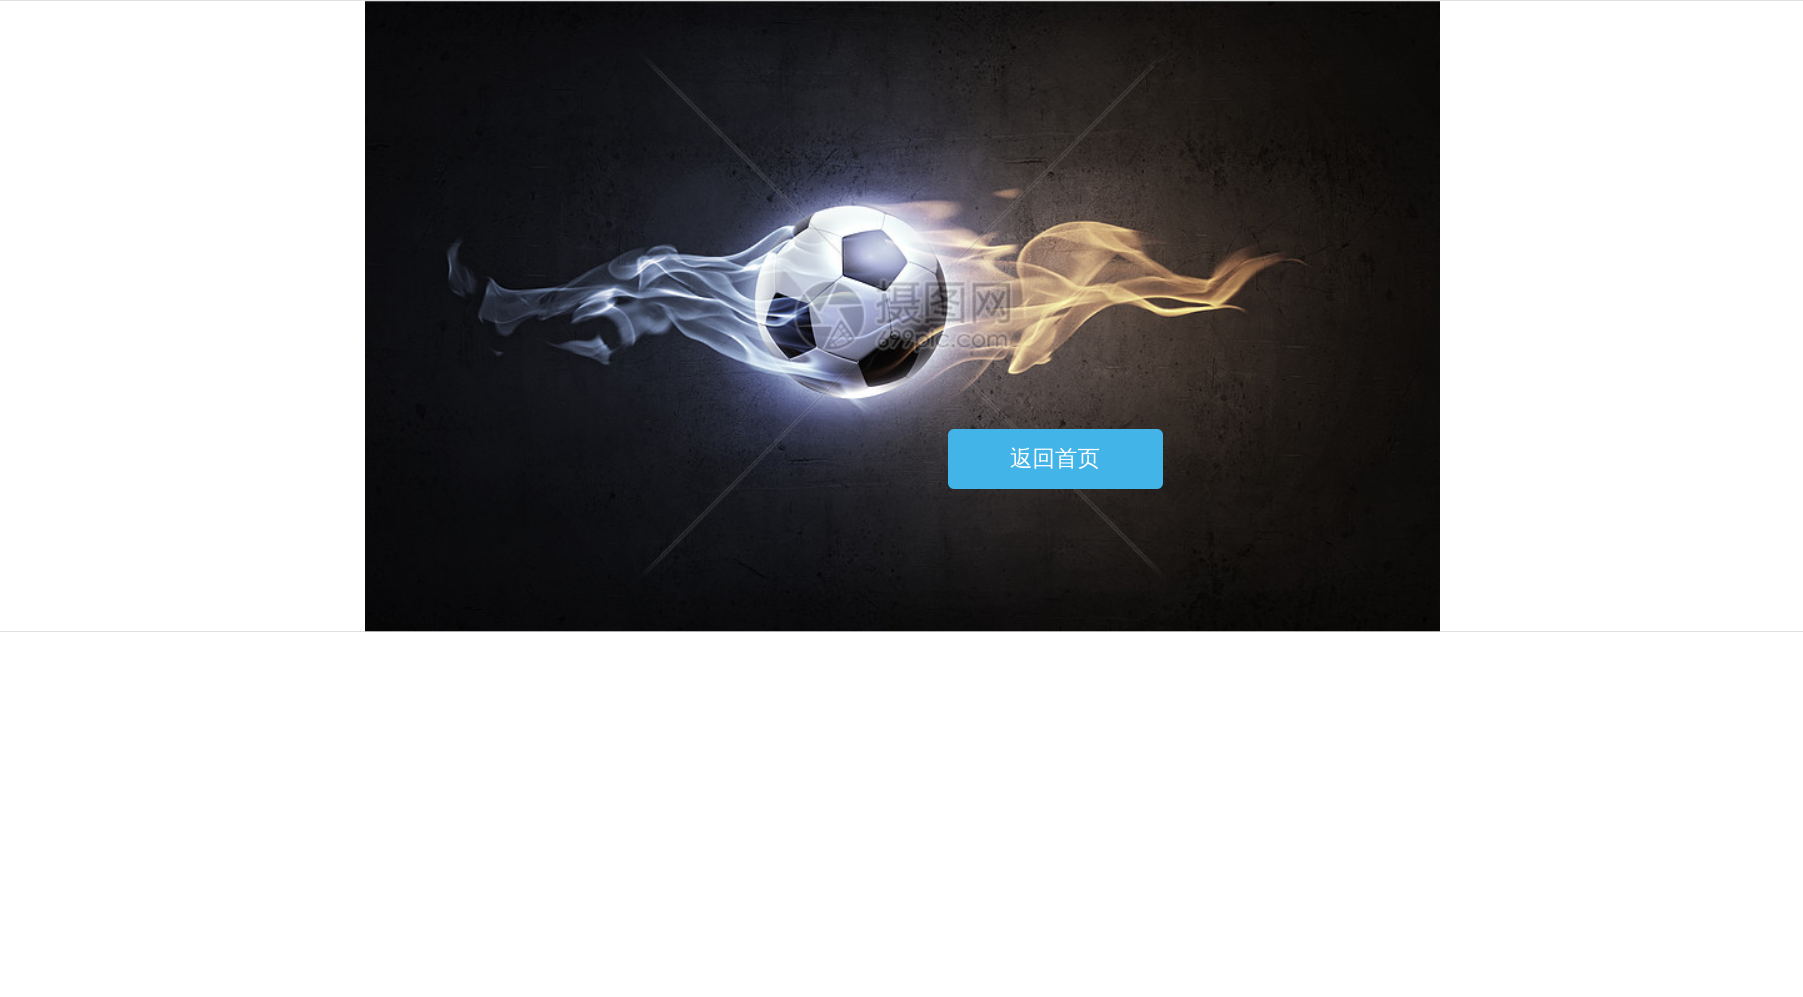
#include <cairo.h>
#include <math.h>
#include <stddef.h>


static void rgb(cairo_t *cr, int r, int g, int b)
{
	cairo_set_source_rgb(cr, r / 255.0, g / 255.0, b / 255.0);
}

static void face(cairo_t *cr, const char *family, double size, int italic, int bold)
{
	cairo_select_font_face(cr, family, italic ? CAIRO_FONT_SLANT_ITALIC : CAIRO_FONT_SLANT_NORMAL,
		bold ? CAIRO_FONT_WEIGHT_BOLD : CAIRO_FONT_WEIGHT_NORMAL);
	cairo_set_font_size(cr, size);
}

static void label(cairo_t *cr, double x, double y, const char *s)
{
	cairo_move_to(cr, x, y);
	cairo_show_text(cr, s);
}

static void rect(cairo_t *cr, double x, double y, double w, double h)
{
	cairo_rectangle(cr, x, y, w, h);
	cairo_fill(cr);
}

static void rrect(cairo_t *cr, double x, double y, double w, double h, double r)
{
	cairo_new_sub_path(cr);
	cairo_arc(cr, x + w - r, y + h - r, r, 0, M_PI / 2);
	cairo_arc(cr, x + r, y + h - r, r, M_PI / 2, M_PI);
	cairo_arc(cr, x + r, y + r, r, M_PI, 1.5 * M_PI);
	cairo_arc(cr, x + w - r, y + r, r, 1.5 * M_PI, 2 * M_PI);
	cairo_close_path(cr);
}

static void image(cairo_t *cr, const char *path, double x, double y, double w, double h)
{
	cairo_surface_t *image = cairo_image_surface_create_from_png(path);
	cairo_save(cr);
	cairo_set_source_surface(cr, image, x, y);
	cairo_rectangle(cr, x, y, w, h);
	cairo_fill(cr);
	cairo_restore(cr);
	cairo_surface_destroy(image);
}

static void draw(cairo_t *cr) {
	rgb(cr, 255, 255, 255);
	cairo_paint(cr);
	rgb(cr, 224, 224, 224);
	rect(cr, 0, 0, 1803, 1);
	rect(cr, 0, 631, 1803, 1);
	image(cr, "image0.png", 365, 1, 1075, 631);
	rgb(cr, 67, 180, 232);
	rrect(cr, 948, 429, 215, 60, 6);
	cairo_fill(cr);
	face(cr, "WenQuanYi Zen Hei Medium", 22.5, 0, 0);
	rgb(cr, 255, 255, 255);
	label(cr, 1010, 466, "返回首页");
}

int main(void) {
	cairo_surface_t *surface = cairo_image_surface_create(CAIRO_FORMAT_RGB24, 1803, 997);
	cairo_t *cr = cairo_create(surface);
	cairo_font_options_t *options = cairo_font_options_create();
	cairo_font_options_set_hint_metrics(options, CAIRO_HINT_METRICS_OFF);
	cairo_font_options_set_hint_style(options, CAIRO_HINT_STYLE_NONE);
	cairo_set_font_options(cr, options);
	cairo_set_miter_limit(cr, 4);
	draw(cr);
	cairo_surface_write_to_png(surface, "render.png");
	cairo_font_options_destroy(options);
	cairo_destroy(cr);
	cairo_surface_destroy(surface);
	return 0;
}
